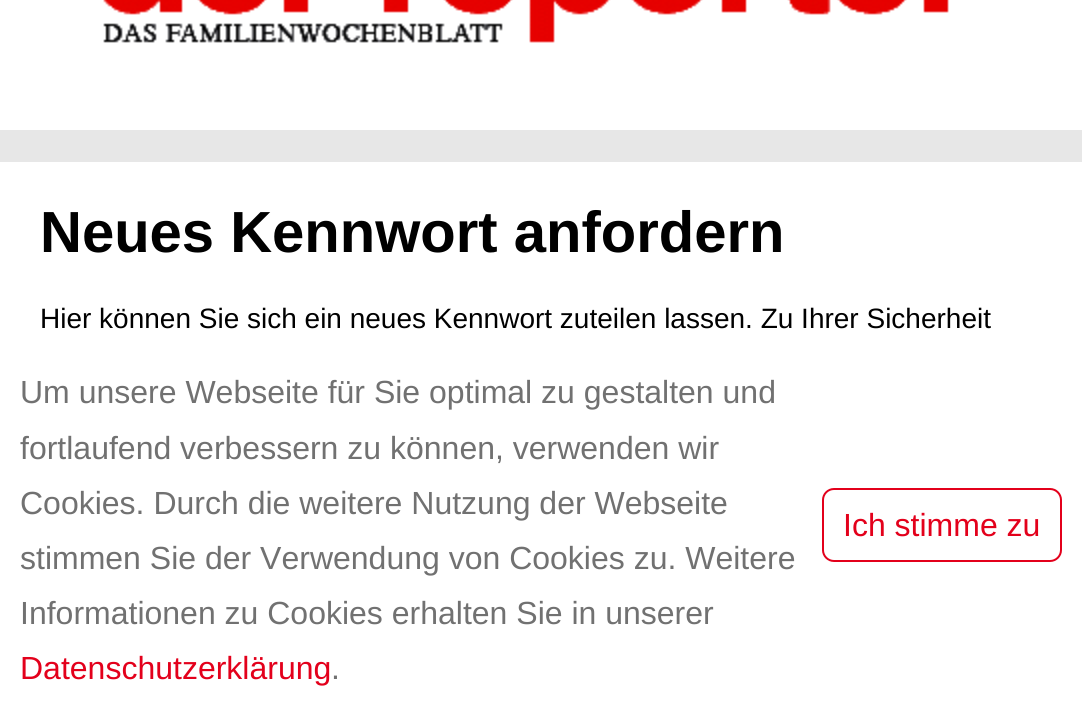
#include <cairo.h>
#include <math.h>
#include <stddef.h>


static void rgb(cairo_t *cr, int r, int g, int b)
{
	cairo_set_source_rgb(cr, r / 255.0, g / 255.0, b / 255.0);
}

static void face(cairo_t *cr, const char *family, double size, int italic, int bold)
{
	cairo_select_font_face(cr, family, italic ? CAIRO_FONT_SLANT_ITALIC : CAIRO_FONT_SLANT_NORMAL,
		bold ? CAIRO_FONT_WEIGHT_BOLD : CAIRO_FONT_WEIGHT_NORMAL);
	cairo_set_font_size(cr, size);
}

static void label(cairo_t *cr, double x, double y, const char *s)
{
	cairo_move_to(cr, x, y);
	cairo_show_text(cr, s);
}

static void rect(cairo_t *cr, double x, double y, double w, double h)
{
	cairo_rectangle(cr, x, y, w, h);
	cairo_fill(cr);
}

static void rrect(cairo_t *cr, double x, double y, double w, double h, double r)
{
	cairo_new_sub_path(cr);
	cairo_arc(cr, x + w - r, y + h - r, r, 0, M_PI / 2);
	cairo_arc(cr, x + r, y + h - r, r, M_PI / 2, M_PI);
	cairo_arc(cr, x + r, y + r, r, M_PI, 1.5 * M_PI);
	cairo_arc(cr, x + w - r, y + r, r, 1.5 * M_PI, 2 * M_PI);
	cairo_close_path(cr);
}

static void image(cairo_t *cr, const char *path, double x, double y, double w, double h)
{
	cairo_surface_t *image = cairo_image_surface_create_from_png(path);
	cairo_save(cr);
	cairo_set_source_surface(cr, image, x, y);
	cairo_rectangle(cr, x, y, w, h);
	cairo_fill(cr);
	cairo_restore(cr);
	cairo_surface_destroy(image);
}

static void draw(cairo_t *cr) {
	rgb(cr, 231, 231, 231);
	cairo_paint(cr);
	rgb(cr, 255, 255, 255);
	rect(cr, 0, 0, 1082, 130);
	image(cr, "image0.png", 103, 0, 846, 43);
	rect(cr, 0, 162, 1082, 553);
	face(cr, "Liberation Sans", 58, 0, 1);
	rgb(cr, 0, 0, 0);
	label(cr, 40, 252, "Neues Kennwort anfordern");
	face(cr, "Liberation Sans", 28, 0, 0);
	label(cr, 40, 328, "Hier können Sie sich ein neues Kennwort zuteilen lassen. Zu Ihrer Sicherheit");
	face(cr, "Liberation Sans", 32, 0, 0);
	rgb(cr, 113, 113, 113);
	label(cr, 20, 403, "Um unsere Webseite für Sie optimal zu gestalten und");
	label(cr, 20, 459, "fortlaufend verbessern zu können, verwenden wir");
	label(cr, 20, 514, "Cookies. Durch die weitere Nutzung der Webseite");
	label(cr, 20, 569, "stimmen Sie der Verwendung von Cookies zu. Weitere");
	label(cr, 20, 624, "Informationen zu Cookies erhalten Sie in unserer");
	rgb(cr, 227, 0, 27);
	label(cr, 20, 679, "Datenschutzerklärung");
	rgb(cr, 113, 113, 113);
	label(cr, 331, 679, ".");
	rrect(cr, 823, 489, 238, 72, 11);
	rgb(cr, 227, 0, 27);
	cairo_stroke(cr);
	label(cr, 843, 536, "Ich stimme zu");
}

int main(void) {
	cairo_surface_t *surface = cairo_image_surface_create(CAIRO_FORMAT_RGB24, 1082, 715);
	cairo_t *cr = cairo_create(surface);
	cairo_font_options_t *options = cairo_font_options_create();
	cairo_font_options_set_hint_metrics(options, CAIRO_HINT_METRICS_OFF);
	cairo_font_options_set_hint_style(options, CAIRO_HINT_STYLE_NONE);
	cairo_set_font_options(cr, options);
	cairo_set_miter_limit(cr, 4);
	draw(cr);
	cairo_surface_write_to_png(surface, "render.png");
	cairo_font_options_destroy(options);
	cairo_destroy(cr);
	cairo_surface_destroy(surface);
	return 0;
}
